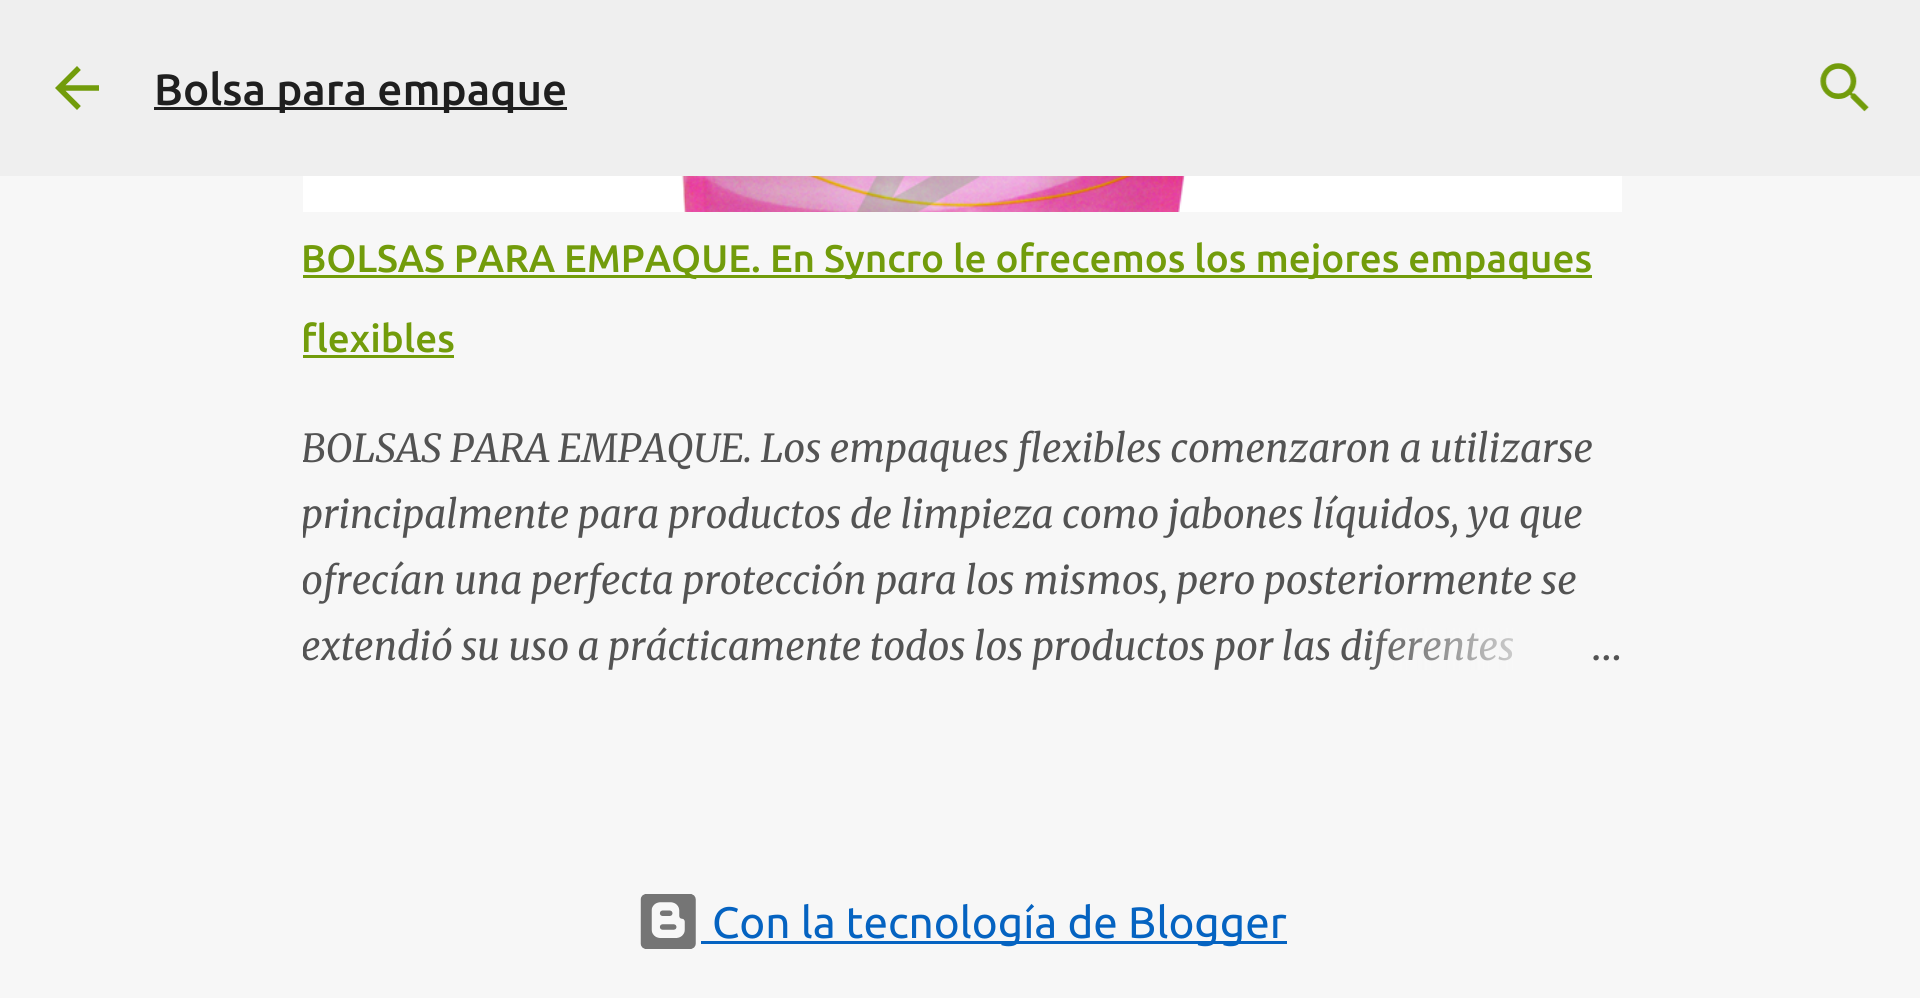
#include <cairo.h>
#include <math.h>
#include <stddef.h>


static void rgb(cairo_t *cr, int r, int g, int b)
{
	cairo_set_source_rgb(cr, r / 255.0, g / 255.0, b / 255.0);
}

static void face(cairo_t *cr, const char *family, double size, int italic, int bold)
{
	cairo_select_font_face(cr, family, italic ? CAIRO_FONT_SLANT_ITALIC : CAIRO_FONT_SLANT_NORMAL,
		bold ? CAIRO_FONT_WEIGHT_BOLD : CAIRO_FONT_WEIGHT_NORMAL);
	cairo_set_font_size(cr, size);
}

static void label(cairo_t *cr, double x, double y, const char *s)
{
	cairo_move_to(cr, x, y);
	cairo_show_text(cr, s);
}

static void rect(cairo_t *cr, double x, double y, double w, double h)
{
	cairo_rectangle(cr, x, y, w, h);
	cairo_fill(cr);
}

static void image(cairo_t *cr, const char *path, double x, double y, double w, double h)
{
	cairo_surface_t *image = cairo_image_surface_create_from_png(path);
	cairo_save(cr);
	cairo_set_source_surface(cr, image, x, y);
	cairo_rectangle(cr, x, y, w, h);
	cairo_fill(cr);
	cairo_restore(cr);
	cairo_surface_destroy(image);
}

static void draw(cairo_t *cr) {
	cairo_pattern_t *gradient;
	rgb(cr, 247, 247, 247);
	cairo_paint(cr);
	rgb(cr, 239, 239, 239);
	rect(cr, 0, 0, 1920, 176);
	image(cr, "image0.png", 55, 66, 44, 44);
	rgb(cr, 31, 31, 31);
	rect(cr, 154, 107, 413, 3);
	cairo_save(cr);
	cairo_rectangle(cr, 154, 63, 1614, 50);
	cairo_clip(cr);
	face(cr, "Ubuntu Medium", 44, 0, 0);
	label(cr, 154, 105, "Bolsa para empaque");
	cairo_restore(cr);
	image(cr, "image1.png", 1820, 63, 50, 49);
	image(cr, "image2.png", 303, 176, 1319, 36);
	rgb(cr, 114, 156, 11);
	rect(cr, 303, 275, 1289, 3);
	face(cr, "Ubuntu Medium", 38.5, 0, 0);
	label(cr, 301, 272, "BOLSAS PARA EMPAQUE. En Syncro le ofrecemos los mejores empaques");
	label(cr, 301, 352, "flexibles");
	rect(cr, 303, 355, 151, 3);
	cairo_save(cr);
	cairo_rectangle(cr, 303, 415, 1320, 264);
	cairo_clip(cr);
	face(cr, "Merriweather", 38.5, 1, 0);
	rgb(cr, 83, 83, 83);
	label(cr, 301, 462, "BOLSAS PARA EMPAQUE. Los empaques flexibles comenzaron a utilizarse");
	label(cr, 301, 528, "principalmente para productos de limpieza como jabones líquidos, ya que");
	label(cr, 301, 594, "ofrecían una perfecta protección para los mismos, pero posteriormente se");
	label(cr, 301, 660, "extendió su uso a prácticamente todos los productos por las diferentes");
	cairo_restore(cr);
	gradient = cairo_pattern_create_linear(1623, 646, 1359, 646);
	cairo_pattern_add_color_stop_rgba(gradient, 0, 0.969, 0.969, 0.969, 1);
	cairo_pattern_add_color_stop_rgba(gradient, 0.2, 0.969, 0.969, 0.969, 1);
	cairo_pattern_add_color_stop_rgba(gradient, 1, 0.969, 0.969, 0.969, 0);
	cairo_set_source(cr, gradient);
	cairo_pattern_destroy(gradient);
	rect(cr, 1365, 628, 149, 42);
	face(cr, "Merriweather Light", 38.5, 0, 0);
	rgb(cr, 83, 83, 83);
	label(cr, 1591, 660, "…");
	image(cr, "image3.png", 640, 894, 56, 55);
	rgb(cr, 5, 99, 193);
	rect(cr, 701, 941, 586, 3);
	face(cr, "Ubuntu", 44, 0, 0);
	label(cr, 712, 938, "Con la tecnología de Blogger");
}

int main(void) {
	cairo_surface_t *surface = cairo_image_surface_create(CAIRO_FORMAT_RGB24, 1920, 998);
	cairo_t *cr = cairo_create(surface);
	cairo_font_options_t *options = cairo_font_options_create();
	cairo_font_options_set_hint_metrics(options, CAIRO_HINT_METRICS_OFF);
	cairo_font_options_set_hint_style(options, CAIRO_HINT_STYLE_NONE);
	cairo_set_font_options(cr, options);
	cairo_set_miter_limit(cr, 4);
	draw(cr);
	cairo_surface_write_to_png(surface, "render.png");
	cairo_font_options_destroy(options);
	cairo_destroy(cr);
	cairo_surface_destroy(surface);
	return 0;
}
